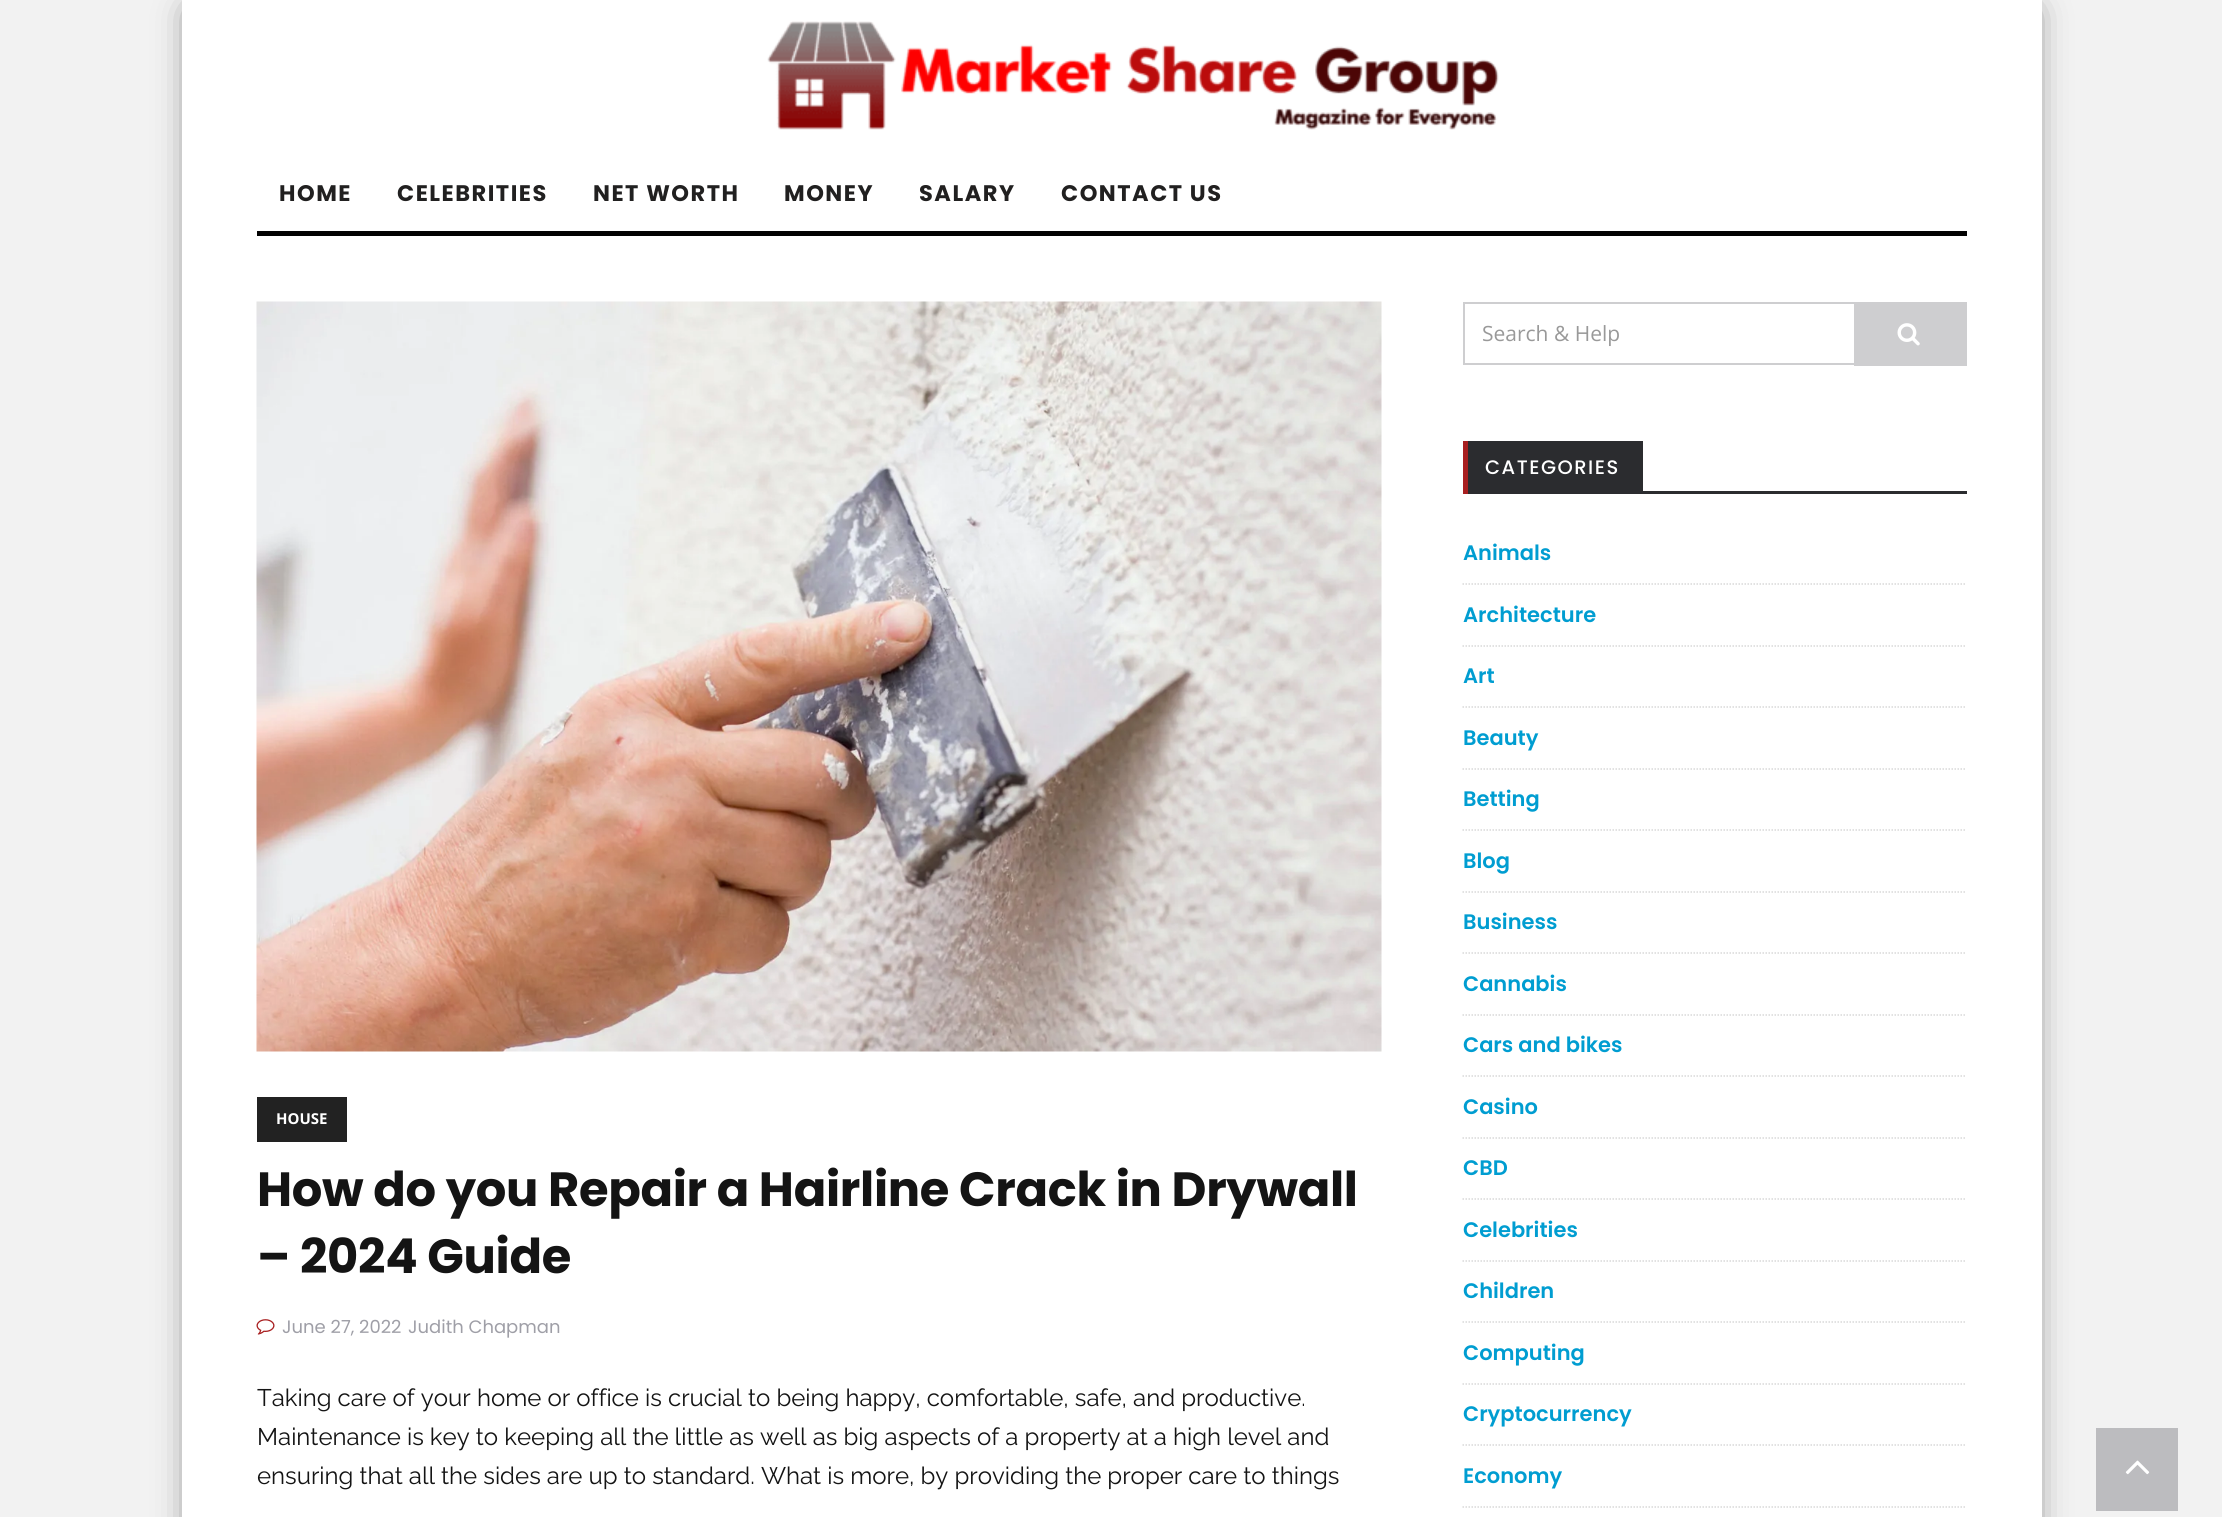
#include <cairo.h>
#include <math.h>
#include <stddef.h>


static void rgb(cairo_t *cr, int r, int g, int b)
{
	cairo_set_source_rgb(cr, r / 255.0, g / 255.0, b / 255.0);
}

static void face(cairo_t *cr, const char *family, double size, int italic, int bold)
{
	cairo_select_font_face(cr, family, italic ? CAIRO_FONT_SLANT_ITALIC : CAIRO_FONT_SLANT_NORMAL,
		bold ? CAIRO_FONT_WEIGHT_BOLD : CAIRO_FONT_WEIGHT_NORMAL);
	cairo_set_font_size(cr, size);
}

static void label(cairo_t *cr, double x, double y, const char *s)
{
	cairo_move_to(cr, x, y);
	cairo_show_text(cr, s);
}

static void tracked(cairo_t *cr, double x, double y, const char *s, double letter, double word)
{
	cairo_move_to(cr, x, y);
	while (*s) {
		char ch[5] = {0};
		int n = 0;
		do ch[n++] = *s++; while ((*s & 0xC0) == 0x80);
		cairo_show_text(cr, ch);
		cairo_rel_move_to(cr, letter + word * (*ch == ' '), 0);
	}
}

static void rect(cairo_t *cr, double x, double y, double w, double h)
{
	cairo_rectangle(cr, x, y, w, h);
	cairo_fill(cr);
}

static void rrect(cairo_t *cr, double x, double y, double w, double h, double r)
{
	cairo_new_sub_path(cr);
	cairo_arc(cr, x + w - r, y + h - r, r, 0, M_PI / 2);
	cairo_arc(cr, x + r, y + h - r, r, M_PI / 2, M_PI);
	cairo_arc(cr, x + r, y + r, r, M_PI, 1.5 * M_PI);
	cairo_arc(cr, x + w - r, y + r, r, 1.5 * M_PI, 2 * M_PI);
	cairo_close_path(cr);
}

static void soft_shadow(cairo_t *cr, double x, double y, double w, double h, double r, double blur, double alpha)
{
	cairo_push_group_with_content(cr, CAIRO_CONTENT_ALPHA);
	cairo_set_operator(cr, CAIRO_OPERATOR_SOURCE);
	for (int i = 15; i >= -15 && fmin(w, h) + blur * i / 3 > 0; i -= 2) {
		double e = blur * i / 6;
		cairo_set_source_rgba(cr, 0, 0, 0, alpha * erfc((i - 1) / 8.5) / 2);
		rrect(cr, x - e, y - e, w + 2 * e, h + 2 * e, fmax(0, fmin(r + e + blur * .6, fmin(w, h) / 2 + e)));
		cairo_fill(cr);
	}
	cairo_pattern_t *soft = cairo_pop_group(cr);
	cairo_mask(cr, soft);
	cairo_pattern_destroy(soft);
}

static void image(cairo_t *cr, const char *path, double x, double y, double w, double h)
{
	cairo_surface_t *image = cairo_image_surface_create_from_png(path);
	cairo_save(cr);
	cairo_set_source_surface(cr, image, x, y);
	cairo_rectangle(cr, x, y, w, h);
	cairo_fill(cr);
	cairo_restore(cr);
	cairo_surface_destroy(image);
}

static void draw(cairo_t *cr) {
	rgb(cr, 242, 242, 242);
	cairo_paint(cr);
	rgb(cr, 97, 97, 97);
	soft_shadow(cr, 194, 12, 1836, 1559, 0, 18, 1);
	rgb(cr, 255, 255, 255);
	rect(cr, 182, 0, 1860, 1517);
	image(cr, "image0.png", 767, 21, 732, 109);
	rgb(cr, 2, 2, 2);
	rect(cr, 257, 231, 1710, 5);
	face(cr, "Poppins", 22.5, 0, 1);
	rgb(cr, 33, 32, 32);
	tracked(cr, 279, 201, "HOME", 1.5, 0);
	tracked(cr, 397, 201, "CELEBRITIES", 1.5, 0);
	tracked(cr, 593, 201, "NET WORTH", 1.5, 0);
	tracked(cr, 784, 201, "MONEY", 1.5, 0);
	tracked(cr, 919, 201, "SALARY", 1.5, 0);
	tracked(cr, 1061, 201, "CONTACT US", 1.5, 0);
	image(cr, "image1.png", 256, 301, 1126, 751);
	rgb(cr, 34, 34, 34);
	rect(cr, 257, 1097, 90, 45);
	face(cr, "Open Sans", 15, 0, 1);
	rgb(cr, 255, 255, 255);
	label(cr, 276, 1124, "HOUSE");
	face(cr, "Poppins", 48, 0, 1);
	rgb(cr, 20, 20, 20);
	tracked(cr, 257, 1206, "How do you Repair a Hairline Crack in Drywall", -0.3, 0);
	tracked(cr, 257, 1273, "– 2024 Guide", -0.3, 0);
	image(cr, "image2.png", 256, 1319, 19, 16);
	face(cr, "Poppins", 18, 0, 0);
	rgb(cr, 159, 159, 167);
	label(cr, 282, 1333, "June 27, 2022");
	label(cr, 408, 1333, "Judith Chapman");
	face(cr, "Raleway", 24, 0, 0);
	rgb(cr, 20, 20, 20);
	label(cr, 257, 1406, "Taking care of your home or office is crucial to being happy, comfortable, safe, and productive.");
	label(cr, 257, 1445, "Maintenance is key to keeping all the little as well as big aspects of a property at a high level and");
	label(cr, 257, 1484, "ensuring that all the sides are up to standard. What is more, by providing the proper care to things");
	cairo_rectangle(cr, 1464, 303, 391, 61);
	rgb(cr, 206, 206, 208);
	cairo_stroke(cr);
	face(cr, "Open Sans", 21, 0, 0);
	rgb(cr, 153, 153, 153);
	label(cr, 1482, 341, "Search & Help");
	rgb(cr, 206, 206, 208);
	rect(cr, 1854, 302, 113, 64);
	image(cr, "image3.png", 1897, 323, 23, 23);
	rgb(cr, 43, 44, 47);
	rect(cr, 1643, 491, 324, 3);
	rect(cr, 1468, 441, 175, 53);
	rgb(cr, 168, 31, 32);
	rect(cr, 1463, 441, 5, 53);
	face(cr, "Poppins Medium", 19.5, 0, 0);
	rgb(cr, 255, 255, 255);
	tracked(cr, 1485, 474, "CATEGORIES", 1.5, 0);
	cairo_new_path(cr);
	cairo_move_to(cr, 1462.5, 584);
	cairo_line_to(cr, 1966.5, 584);
	rgb(cr, 216, 216, 216);
	cairo_set_line_width(cr, 1.5);
	cairo_set_dash(cr, (double[]){1.5, 1.5}, 2, 0);
	cairo_stroke(cr);
	face(cr, "Poppins SemiBold", 21, 0, 0);
	rgb(cr, 0, 157, 209);
	label(cr, 1463, 560, "Animals");
	cairo_new_path(cr);
	cairo_move_to(cr, 1462.5, 646);
	cairo_line_to(cr, 1966.5, 646);
	rgb(cr, 216, 216, 216);
	cairo_stroke(cr);
	rgb(cr, 0, 157, 209);
	label(cr, 1463, 622, "Architecture");
	cairo_new_path(cr);
	cairo_move_to(cr, 1462.5, 707);
	cairo_line_to(cr, 1966.5, 707);
	rgb(cr, 216, 216, 216);
	cairo_stroke(cr);
	rgb(cr, 0, 157, 209);
	label(cr, 1463, 683, "Art");
	cairo_new_path(cr);
	cairo_move_to(cr, 1462.5, 769);
	cairo_line_to(cr, 1966.5, 769);
	rgb(cr, 216, 216, 216);
	cairo_stroke(cr);
	rgb(cr, 0, 157, 209);
	label(cr, 1463, 745, "Beauty");
	cairo_new_path(cr);
	cairo_move_to(cr, 1462.5, 830);
	cairo_line_to(cr, 1966.5, 830);
	rgb(cr, 216, 216, 216);
	cairo_stroke(cr);
	rgb(cr, 0, 157, 209);
	label(cr, 1463, 806, "Betting");
	cairo_new_path(cr);
	cairo_move_to(cr, 1462.5, 892);
	cairo_line_to(cr, 1966.5, 892);
	rgb(cr, 216, 216, 216);
	cairo_stroke(cr);
	rgb(cr, 0, 157, 209);
	label(cr, 1463, 868, "Blog");
	cairo_new_path(cr);
	cairo_move_to(cr, 1462.5, 953);
	cairo_line_to(cr, 1966.5, 953);
	rgb(cr, 216, 216, 216);
	cairo_stroke(cr);
	rgb(cr, 0, 157, 209);
	label(cr, 1463, 929, "Business");
	cairo_new_path(cr);
	cairo_move_to(cr, 1462.5, 1015);
	cairo_line_to(cr, 1966.5, 1015);
	rgb(cr, 216, 216, 216);
	cairo_stroke(cr);
	rgb(cr, 0, 157, 209);
	label(cr, 1463, 991, "Cannabis");
	cairo_new_path(cr);
	cairo_move_to(cr, 1462.5, 1076);
	cairo_line_to(cr, 1966.5, 1076);
	rgb(cr, 216, 216, 216);
	cairo_stroke(cr);
	rgb(cr, 0, 157, 209);
	label(cr, 1463, 1052, "Cars and bikes");
	cairo_new_path(cr);
	cairo_move_to(cr, 1462.5, 1138);
	cairo_line_to(cr, 1966.5, 1138);
	rgb(cr, 216, 216, 216);
	cairo_stroke(cr);
	rgb(cr, 0, 157, 209);
	label(cr, 1463, 1114, "Casino");
	cairo_new_path(cr);
	cairo_move_to(cr, 1462.5, 1199);
	cairo_line_to(cr, 1966.5, 1199);
	rgb(cr, 216, 216, 216);
	cairo_stroke(cr);
	rgb(cr, 0, 157, 209);
	label(cr, 1463, 1175, "CBD");
	cairo_new_path(cr);
	cairo_move_to(cr, 1462.5, 1261);
	cairo_line_to(cr, 1966.5, 1261);
	rgb(cr, 216, 216, 216);
	cairo_stroke(cr);
	rgb(cr, 0, 157, 209);
	label(cr, 1463, 1237, "Celebrities");
	cairo_new_path(cr);
	cairo_move_to(cr, 1462.5, 1322);
	cairo_line_to(cr, 1966.5, 1322);
	rgb(cr, 216, 216, 216);
	cairo_stroke(cr);
	rgb(cr, 0, 157, 209);
	label(cr, 1463, 1298, "Children");
	cairo_new_path(cr);
	cairo_move_to(cr, 1462.5, 1384);
	cairo_line_to(cr, 1966.5, 1384);
	rgb(cr, 216, 216, 216);
	cairo_stroke(cr);
	rgb(cr, 0, 157, 209);
	label(cr, 1463, 1360, "Computing");
	cairo_new_path(cr);
	cairo_move_to(cr, 1462.5, 1445);
	cairo_line_to(cr, 1966.5, 1445);
	rgb(cr, 216, 216, 216);
	cairo_stroke(cr);
	rgb(cr, 0, 157, 209);
	label(cr, 1463, 1421, "Cryptocurrency");
	cairo_new_path(cr);
	cairo_move_to(cr, 1462.5, 1507);
	cairo_line_to(cr, 1966.5, 1507);
	rgb(cr, 216, 216, 216);
	cairo_stroke(cr);
	rgb(cr, 0, 157, 209);
	label(cr, 1463, 1483, "Economy");
	rgb(cr, 188, 188, 191);
	rect(cr, 2096, 1428, 82, 83);
	image(cr, "image4.png", 2125, 1460, 25, 15);
}

int main(void) {
	cairo_surface_t *surface = cairo_image_surface_create(CAIRO_FORMAT_RGB24, 2222, 1517);
	cairo_t *cr = cairo_create(surface);
	cairo_font_options_t *options = cairo_font_options_create();
	cairo_font_options_set_hint_metrics(options, CAIRO_HINT_METRICS_OFF);
	cairo_font_options_set_hint_style(options, CAIRO_HINT_STYLE_NONE);
	cairo_set_font_options(cr, options);
	cairo_set_miter_limit(cr, 4);
	draw(cr);
	cairo_surface_write_to_png(surface, "render.png");
	cairo_font_options_destroy(options);
	cairo_destroy(cr);
	cairo_surface_destroy(surface);
	return 0;
}
